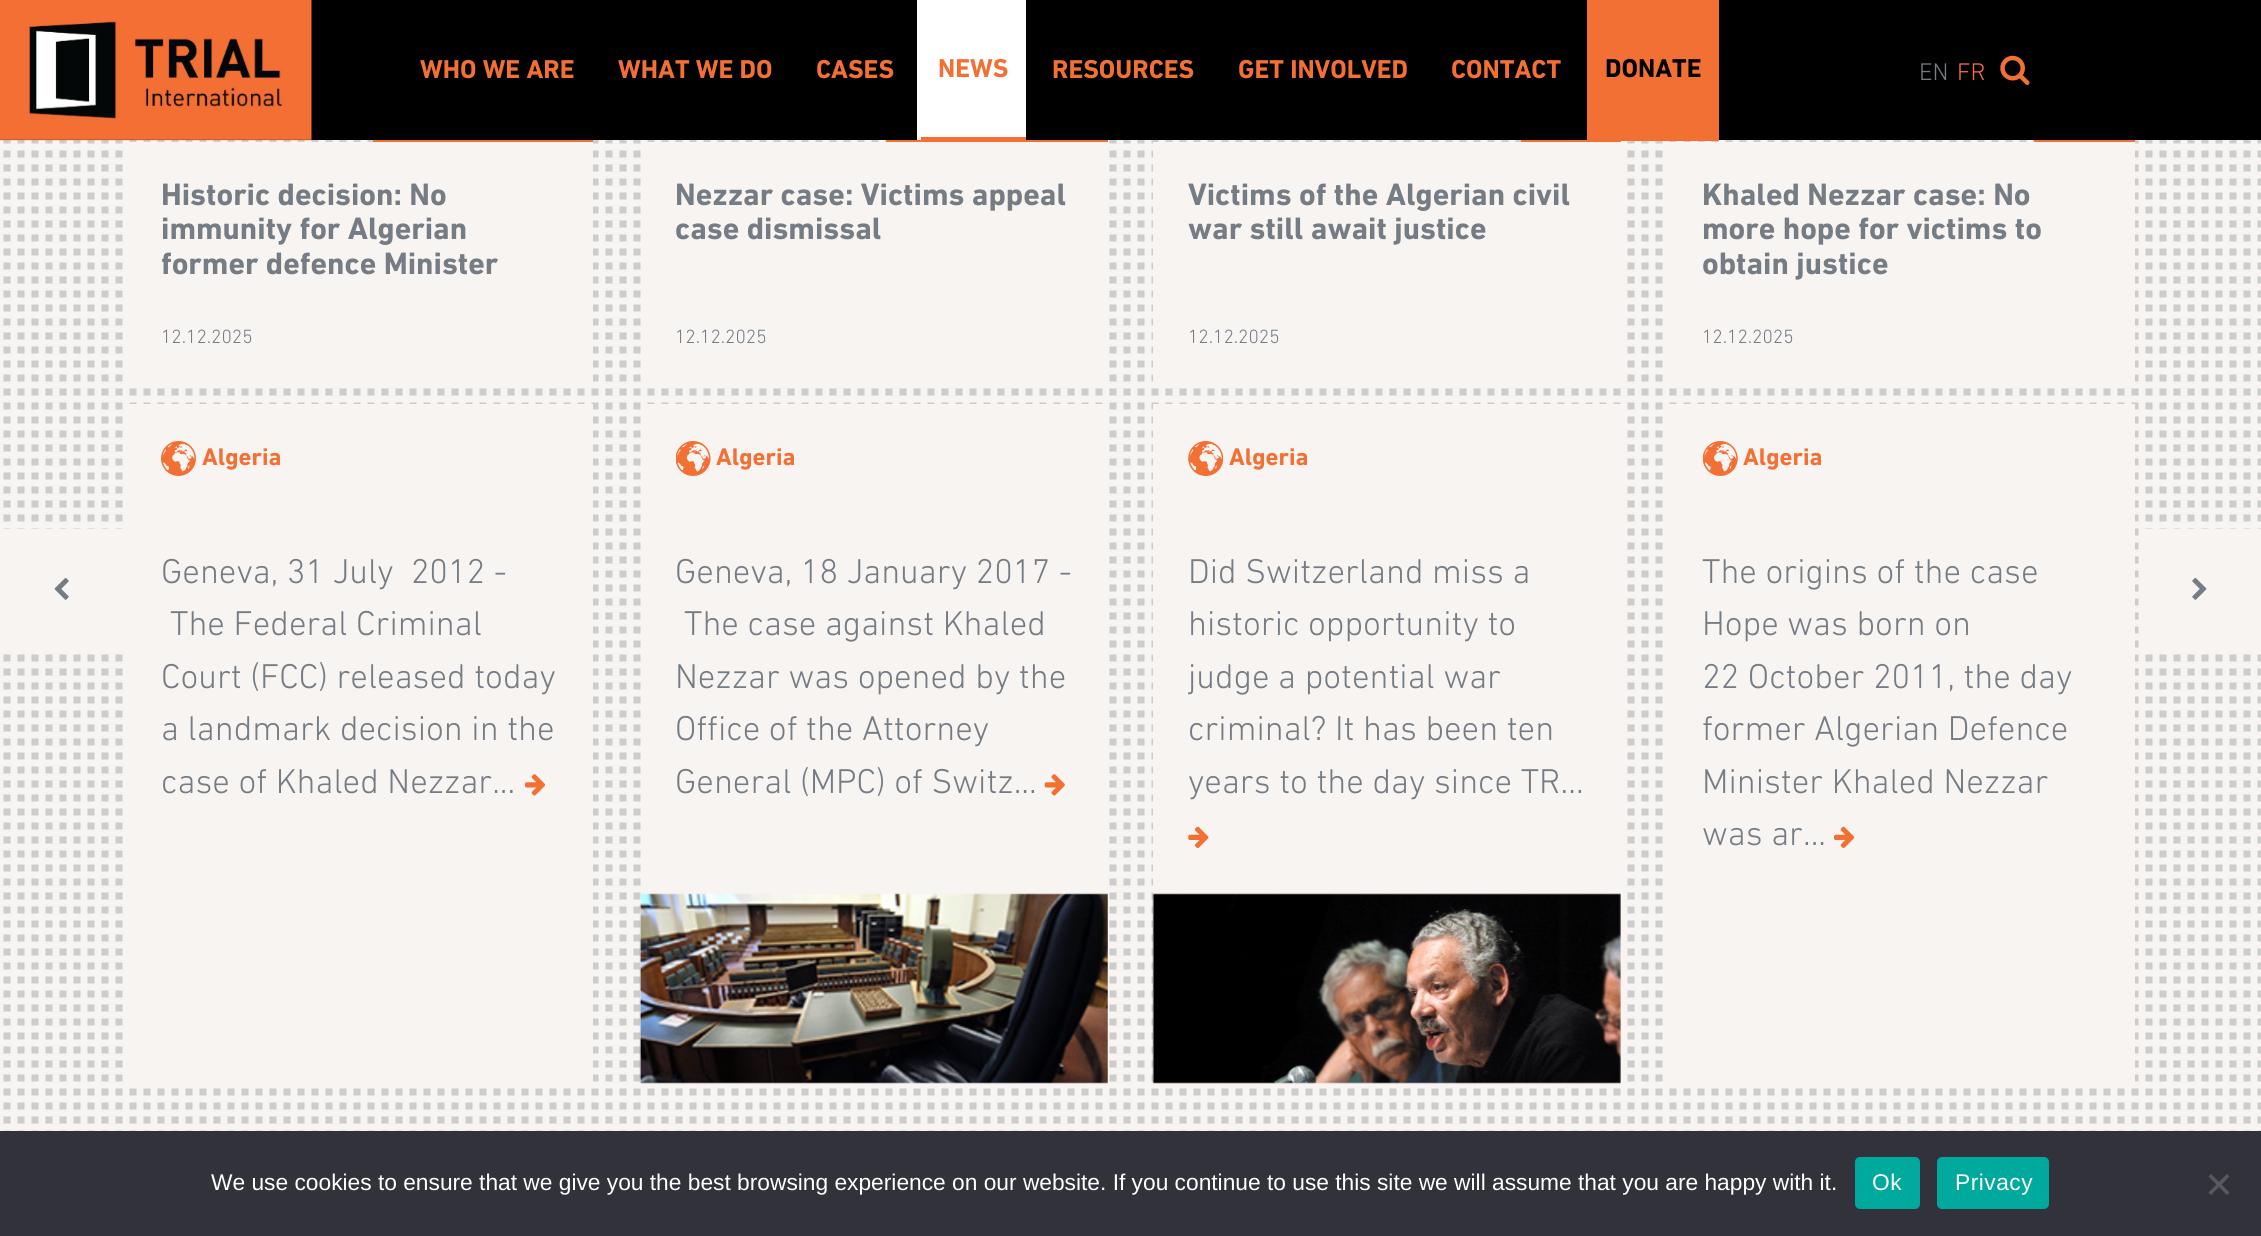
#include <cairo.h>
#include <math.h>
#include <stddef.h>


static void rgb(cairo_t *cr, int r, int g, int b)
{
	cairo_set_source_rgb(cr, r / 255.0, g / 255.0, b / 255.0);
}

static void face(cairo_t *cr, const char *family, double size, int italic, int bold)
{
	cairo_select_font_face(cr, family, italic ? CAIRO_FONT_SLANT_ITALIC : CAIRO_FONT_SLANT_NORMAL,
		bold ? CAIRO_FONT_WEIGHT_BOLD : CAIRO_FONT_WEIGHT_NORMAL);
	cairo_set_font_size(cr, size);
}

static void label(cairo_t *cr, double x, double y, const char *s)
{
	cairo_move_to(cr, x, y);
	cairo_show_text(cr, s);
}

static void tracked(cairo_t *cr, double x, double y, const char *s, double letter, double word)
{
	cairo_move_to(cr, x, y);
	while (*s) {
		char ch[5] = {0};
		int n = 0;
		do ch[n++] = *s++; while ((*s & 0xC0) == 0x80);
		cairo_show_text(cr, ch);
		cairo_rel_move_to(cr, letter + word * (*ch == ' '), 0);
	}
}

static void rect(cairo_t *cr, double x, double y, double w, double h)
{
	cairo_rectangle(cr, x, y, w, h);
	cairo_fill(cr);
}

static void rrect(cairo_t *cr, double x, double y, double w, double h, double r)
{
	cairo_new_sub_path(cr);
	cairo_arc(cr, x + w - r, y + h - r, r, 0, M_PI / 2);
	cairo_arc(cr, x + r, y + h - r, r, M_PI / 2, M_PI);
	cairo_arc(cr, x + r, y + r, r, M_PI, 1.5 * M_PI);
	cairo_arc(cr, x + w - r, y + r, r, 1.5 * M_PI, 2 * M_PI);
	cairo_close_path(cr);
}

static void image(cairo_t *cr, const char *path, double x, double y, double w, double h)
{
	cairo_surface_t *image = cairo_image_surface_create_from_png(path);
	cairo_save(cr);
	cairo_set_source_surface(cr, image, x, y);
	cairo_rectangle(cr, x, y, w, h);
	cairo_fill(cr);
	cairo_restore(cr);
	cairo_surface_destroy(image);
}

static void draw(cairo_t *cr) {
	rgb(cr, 247, 244, 242);
	cairo_paint(cr);
	rgb(cr, 0, 0, 0);
	rect(cr, 0, 0, 2261, 140);
	image(cr, "image2.png", 3, 140, 2258, 991);
	image(cr, "image0.png", 0, 0, 312, 141);
	face(cr, "DIN", 26.25, 0, 1);
	rgb(cr, 243, 112, 53);
	label(cr, 420, 78, "WHO WE ARE");
	label(cr, 618, 78, "WHAT WE DO");
	label(cr, 816, 78, "CASES");
	rgb(cr, 255, 255, 255);
	rect(cr, 917, 0, 109, 140);
	rgb(cr, 243, 112, 53);
	rect(cr, 921, 137, 105, 3);
	label(cr, 938, 77, "NEWS");
	label(cr, 1052, 78, "RESOURCES");
	label(cr, 1238, 78, "GET INVOLVED");
	label(cr, 1451, 78, "CONTACT");
	rect(cr, 1521, 140, 100, 2);
	rect(cr, 1587, 0, 132, 141);
	rgb(cr, 0, 0, 0);
	label(cr, 1605, 77, "DONATE");
	face(cr, "DIN Light", 24.5, 0, 0);
	rgb(cr, 117, 124, 131);
	label(cr, 1919, 80, "EN");
	rgb(cr, 243, 112, 53);
	label(cr, 1957, 80, "FR");
	image(cr, "image1.png", 2000, 55, 30, 30);
	rect(cr, 373, 140, 220, 2);
	rgb(cr, 247, 244, 242);
	rect(cr, 129, 142, 464, 240);
	face(cr, "DIN", 31.5, 0, 1);
	rgb(cr, 117, 124, 131);
	label(cr, 161, 205, "Historic decision: No");
	label(cr, 161, 239, "immunity for Algerian");
	label(cr, 161, 274, "former defence Minister");
	face(cr, "DIN Light", 19.5, 0, 0);
	label(cr, 161, 343, "12.12.2025");
	rgb(cr, 247, 244, 242);
	rect(cr, 129, 404, 464, 678);
	image(cr, "image3.png", 161, 441, 35, 35);
	face(cr, "DIN", 24.5, 0, 1);
	rgb(cr, 243, 112, 53);
	label(cr, 202, 465, "Algeria");
	face(cr, "DIN Light", 35, 0, 0);
	rgb(cr, 117, 124, 131);
	label(cr, 161, 583, "Geneva, 31 July  2012 -");
	label(cr, 170, 635, "The Federal Criminal");
	label(cr, 161, 688, "Court (FCC) released today");
	label(cr, 161, 740, "a landmark decision in the");
	label(cr, 161, 793, "case of Khaled Nezzar...");
	image(cr, "image4.png", 525, 774, 21, 22);
	rgb(cr, 243, 112, 53);
	rect(cr, 886, 140, 222, 2);
	rgb(cr, 247, 244, 242);
	rect(cr, 647, 142, 456, 240);
	face(cr, "DIN", 31.5, 0, 1);
	rgb(cr, 117, 124, 131);
	label(cr, 675, 205, "Nezzar case: Victims appeal");
	label(cr, 675, 239, "case dismissal");
	face(cr, "DIN Light", 19.5, 0, 0);
	label(cr, 675, 343, "12.12.2025");
	rgb(cr, 247, 244, 242);
	rect(cr, 647, 404, 456, 678);
	image(cr, "image5.png", 676, 441, 35, 35);
	face(cr, "DIN", 24.5, 0, 1);
	rgb(cr, 243, 112, 53);
	label(cr, 716, 465, "Algeria");
	face(cr, "DIN Light", 35, 0, 0);
	rgb(cr, 117, 124, 131);
	label(cr, 675, 583, "Geneva, 18 January 2017 -");
	label(cr, 684, 635, "The case against Khaled");
	label(cr, 675, 688, "Nezzar was opened by the");
	label(cr, 675, 740, "Office of the Attorney");
	label(cr, 675, 793, "General (MPC) of Switz...");
	image(cr, "image6.png", 1044, 774, 21, 22);
	image(cr, "image7.png", 639, 893, 469, 191);
	rgb(cr, 247, 244, 242);
	rect(cr, 1153, 142, 468, 240);
	face(cr, "DIN", 31.5, 0, 1);
	rgb(cr, 117, 124, 131);
	label(cr, 1188, 205, "Victims of the Algerian civil");
	label(cr, 1188, 239, "war still await justice");
	face(cr, "DIN Light", 19.5, 0, 0);
	label(cr, 1188, 343, "12.12.2025");
	rgb(cr, 247, 244, 242);
	rect(cr, 1153, 404, 468, 678);
	image(cr, "image8.png", 1188, 441, 35, 35);
	face(cr, "DIN", 24.5, 0, 1);
	rgb(cr, 243, 112, 53);
	label(cr, 1229, 465, "Algeria");
	face(cr, "DIN Light", 35, 0, 0);
	rgb(cr, 117, 124, 131);
	label(cr, 1188, 583, "Did Switzerland miss a");
	label(cr, 1188, 635, "historic opportunity to");
	label(cr, 1188, 688, "judge a potential war");
	label(cr, 1188, 740, "criminal? It has been ten");
	label(cr, 1188, 793, "years to the day since TR...");
	image(cr, "image9.png", 1188, 826, 21, 22);
	image(cr, "image10.png", 1152, 893, 469, 191);
	rgb(cr, 243, 112, 53);
	rect(cr, 2034, 140, 101, 2);
	rgb(cr, 247, 244, 242);
	rect(cr, 1669, 142, 466, 240);
	face(cr, "DIN", 31.5, 0, 1);
	rgb(cr, 117, 124, 131);
	label(cr, 1702, 205, "Khaled Nezzar case: No");
	label(cr, 1702, 239, "more hope for victims to");
	label(cr, 1702, 274, "obtain justice");
	face(cr, "DIN Light", 19.5, 0, 0);
	label(cr, 1702, 343, "12.12.2025");
	rgb(cr, 247, 244, 242);
	rect(cr, 1669, 404, 466, 678);
	image(cr, "image11.png", 1703, 441, 35, 35);
	face(cr, "DIN", 24.5, 0, 1);
	rgb(cr, 243, 112, 53);
	label(cr, 1743, 465, "Algeria");
	face(cr, "DIN Light", 35, 0, 0);
	rgb(cr, 117, 124, 131);
	label(cr, 1702, 583, "The origins of the case");
	label(cr, 1702, 635, "Hope was born on");
	label(cr, 1702, 688, "22 October 2011, the day");
	label(cr, 1702, 740, "former Algerian Defence");
	label(cr, 1702, 793, "Minister Khaled Nezzar");
	label(cr, 1702, 845, "was ar...");
	image(cr, "image12.png", 1834, 826, 21, 22);
	rgb(cr, 247, 244, 242);
	rect(cr, 3, 529, 120, 119);
	image(cr, "image13.png", 54, 577, 15, 23);
	rect(cr, 2145, 529, 116, 119);
	image(cr, "image14.png", 2192, 577, 15, 23);
	rgb(cr, 50, 50, 58);
	rect(cr, 0, 1131, 2261, 105);
	face(cr, "Liberation Sans", 22.75, 0, 0);
	rgb(cr, 255, 255, 255);
	label(cr, 211, 1190, "We use cookies to ensure that we give you the best browsing experience on our website. If you continue to use this site we will assume that you are happy with it.");
	rgb(cr, 0, 169, 157);
	rrect(cr, 1855, 1157, 65, 52, 5);
	cairo_fill(cr);
	rgb(cr, 255, 255, 255);
	tracked(cr, 1872, 1190, "Ok", 0.5, 0);
	rgb(cr, 0, 169, 157);
	rrect(cr, 1937, 1157, 112, 52, 5);
	cairo_fill(cr);
	rgb(cr, 255, 255, 255);
	tracked(cr, 1955, 1190, "Privacy", 0.5, 0);
	rgb(cr, 89, 89, 93);
	cairo_new_path(cr);
	cairo_move_to(cr, 2227, 1174);
	cairo_line_to(cr, 2229.5, 1176.5);
	cairo_line_to(cr, 2211, 1195);
	cairo_line_to(cr, 2208.5, 1192.5);
	cairo_close_path(cr);
	cairo_fill(cr);
	cairo_new_path(cr);
	cairo_move_to(cr, 2208.5, 1176.5);
	cairo_line_to(cr, 2211, 1174);
	cairo_line_to(cr, 2229.5, 1192.5);
	cairo_line_to(cr, 2227, 1195);
	cairo_close_path(cr);
	cairo_fill(cr);
}

int main(void) {
	cairo_surface_t *surface = cairo_image_surface_create(CAIRO_FORMAT_RGB24, 2261, 1236);
	cairo_t *cr = cairo_create(surface);
	cairo_font_options_t *options = cairo_font_options_create();
	cairo_font_options_set_hint_metrics(options, CAIRO_HINT_METRICS_OFF);
	cairo_font_options_set_hint_style(options, CAIRO_HINT_STYLE_NONE);
	cairo_set_font_options(cr, options);
	cairo_set_miter_limit(cr, 4);
	draw(cr);
	cairo_surface_write_to_png(surface, "render.png");
	cairo_font_options_destroy(options);
	cairo_destroy(cr);
	cairo_surface_destroy(surface);
	return 0;
}
